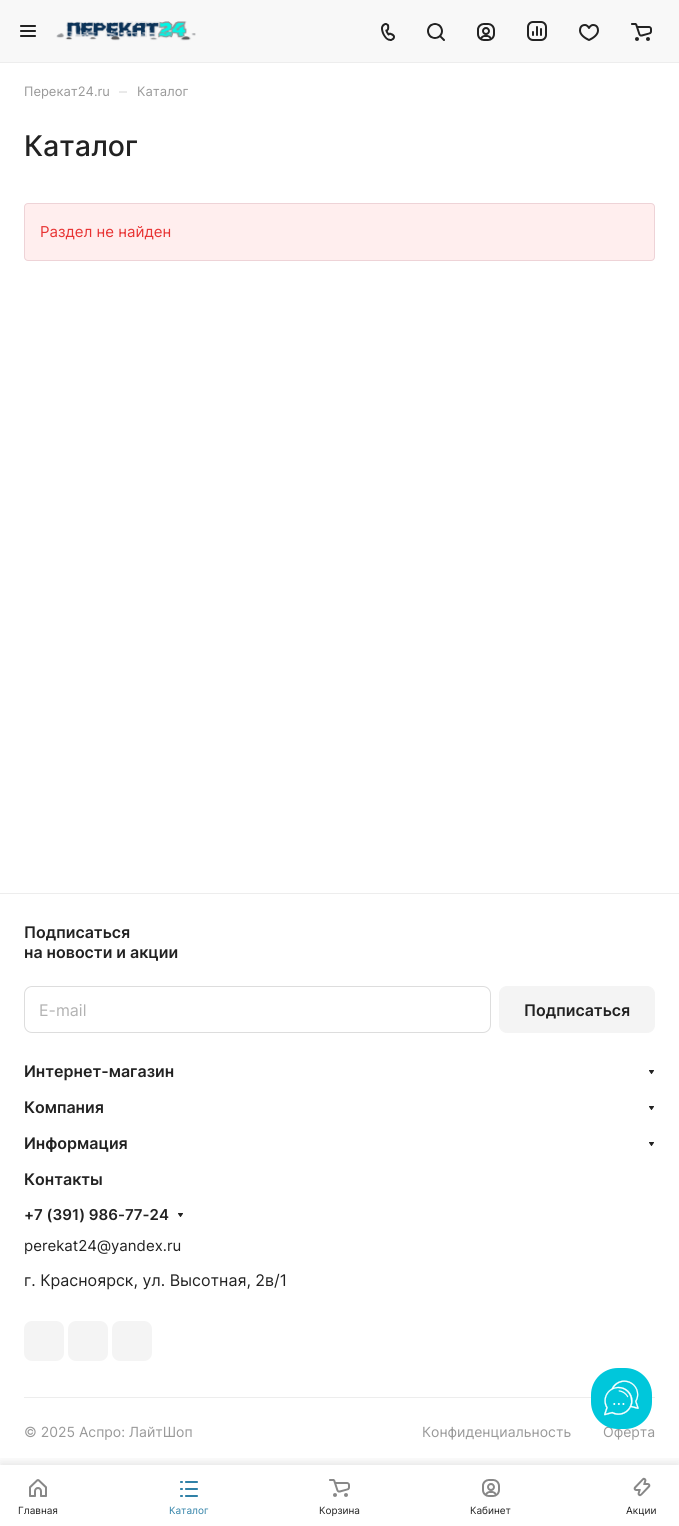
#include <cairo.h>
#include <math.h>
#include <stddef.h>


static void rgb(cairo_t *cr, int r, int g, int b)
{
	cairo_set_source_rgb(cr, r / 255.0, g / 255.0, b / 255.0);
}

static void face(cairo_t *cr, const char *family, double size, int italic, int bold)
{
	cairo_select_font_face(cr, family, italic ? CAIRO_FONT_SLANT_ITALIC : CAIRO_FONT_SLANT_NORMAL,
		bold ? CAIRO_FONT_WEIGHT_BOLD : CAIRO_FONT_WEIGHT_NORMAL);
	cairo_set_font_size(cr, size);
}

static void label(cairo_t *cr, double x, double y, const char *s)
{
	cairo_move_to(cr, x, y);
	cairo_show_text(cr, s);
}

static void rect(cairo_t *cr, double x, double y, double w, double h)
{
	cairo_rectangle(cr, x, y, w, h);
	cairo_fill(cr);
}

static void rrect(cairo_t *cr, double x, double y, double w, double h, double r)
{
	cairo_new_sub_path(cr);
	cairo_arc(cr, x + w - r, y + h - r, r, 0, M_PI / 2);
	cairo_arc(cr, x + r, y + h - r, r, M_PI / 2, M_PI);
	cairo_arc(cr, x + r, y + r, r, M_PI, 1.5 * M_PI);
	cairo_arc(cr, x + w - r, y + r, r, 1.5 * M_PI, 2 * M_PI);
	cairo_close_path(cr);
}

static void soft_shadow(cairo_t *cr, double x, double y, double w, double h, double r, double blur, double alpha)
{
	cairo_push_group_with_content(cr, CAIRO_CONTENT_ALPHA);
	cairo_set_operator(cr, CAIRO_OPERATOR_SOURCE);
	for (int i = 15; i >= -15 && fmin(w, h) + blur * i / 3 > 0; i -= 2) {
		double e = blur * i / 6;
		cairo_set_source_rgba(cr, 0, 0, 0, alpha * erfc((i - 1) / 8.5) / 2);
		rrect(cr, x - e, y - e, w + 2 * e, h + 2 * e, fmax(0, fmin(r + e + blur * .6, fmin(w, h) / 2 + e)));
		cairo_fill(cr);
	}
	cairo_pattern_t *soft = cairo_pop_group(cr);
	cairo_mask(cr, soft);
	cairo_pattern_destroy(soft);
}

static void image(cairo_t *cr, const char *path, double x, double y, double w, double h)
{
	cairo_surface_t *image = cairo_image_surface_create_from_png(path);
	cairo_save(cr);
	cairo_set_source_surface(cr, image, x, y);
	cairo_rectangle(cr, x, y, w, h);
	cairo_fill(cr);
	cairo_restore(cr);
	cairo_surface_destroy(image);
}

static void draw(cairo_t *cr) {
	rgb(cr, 255, 255, 255);
	cairo_paint(cr);
	rgb(cr, 237, 237, 237);
	rect(cr, 0, 62, 679, 1);
	rgb(cr, 248, 248, 248);
	rect(cr, 0, 0, 679, 62);
	image(cr, "image0.png", 20, 25, 16, 12);
	image(cr, "image1.png", 56, 21, 140, 20);
	image(cr, "image2.png", 381, 23, 14, 18);
	image(cr, "image3.png", 427, 23, 18, 18);
	image(cr, "image4.png", 477, 23, 18, 18);
	image(cr, "image5.png", 527, 21, 20, 20);
	image(cr, "image6.png", 579, 24, 20, 17);
	image(cr, "image7.png", 631, 23, 21, 18);
	face(cr, "Inter", 13, 0, 0);
	rgb(cr, 153, 153, 153);
	label(cr, 24, 96, "Перекат24.ru");
	face(cr, "Inter", 16, 0, 0);
	rgb(cr, 221, 221, 221);
	label(cr, 119, 97, "–");
	face(cr, "Inter", 13, 0, 0);
	rgb(cr, 153, 153, 153);
	label(cr, 137, 96, "Каталог");
	face(cr, "Inter Medium", 28.5, 0, 0);
	rgb(cr, 34, 34, 34);
	label(cr, 24, 156, "Каталог");
	rgb(cr, 255, 238, 238);
	rrect(cr, 24.5, 203.5, 630, 57, 3.5);
	cairo_fill_preserve(cr);
	rgb(cr, 238, 211, 215);
	cairo_set_line_width(cr, 1);
	cairo_stroke(cr);
	face(cr, "Inter", 15, 0, 0);
	rgb(cr, 232, 51, 51);
	label(cr, 40, 237, "Раздел не найден");
	rgb(cr, 237, 237, 237);
	rect(cr, 0, 893, 679, 1);
	face(cr, "Inter SemiBold", 16, 0, 0);
	rgb(cr, 34, 34, 34);
	label(cr, 24, 938, "Подписаться");
	label(cr, 24, 958, "на новости и акции");
	rrect(cr, 24.5, 986.5, 466, 46, 7.5);
	rgb(cr, 221, 221, 221);
	cairo_stroke(cr);
	face(cr, "Inter", 16, 0, 0);
	rgb(cr, 178, 178, 178);
	label(cr, 39, 1016, "E-mail");
	rgb(cr, 244, 244, 244);
	rrect(cr, 499.5, 986.5, 155, 46, 7.5);
	cairo_fill_preserve(cr);
	cairo_stroke(cr);
	face(cr, "Inter SemiBold", 16, 0, 0);
	rgb(cr, 34, 34, 34);
	label(cr, 524, 1016, "Подписаться");
	label(cr, 24, 1077, "Интернет-магазин");
	image(cr, "image8.png", 649, 1070, 5, 4);
	label(cr, 24, 1113, "Компания");
	image(cr, "image8.png", 649, 1106, 5, 4);
	label(cr, 24, 1149, "Информация");
	image(cr, "image8.png", 649, 1142, 5, 4);
	label(cr, 24, 1185, "Контакты");
	face(cr, "Inter SemiBold", 15, 0, 0);
	label(cr, 24, 1220, "+7 (391) 986-77-24");
	image(cr, "image8.png", 178, 1213, 5, 4);
	face(cr, "Inter", 15, 0, 0);
	label(cr, 24, 1251, "perekat24@yandex.ru");
	face(cr, "Inter", 16, 0, 0);
	label(cr, 24, 1286, "г. Красноярск, ул. Высотная, 2в/1");
	rgb(cr, 244, 244, 244);
	rrect(cr, 24, 1321, 40, 40, 8);
	cairo_fill(cr);
	rrect(cr, 68, 1321, 40, 40, 8);
	cairo_fill(cr);
	rrect(cr, 112, 1321, 40, 40, 8);
	cairo_fill(cr);
	rgb(cr, 237, 237, 237);
	rect(cr, 24, 1397, 631, 1);
	face(cr, "Inter", 14, 0, 0);
	rgb(cr, 153, 153, 153);
	label(cr, 24, 1437, "© 2025 Аспро: ЛайтШоп");
	label(cr, 422, 1437, "Конфиденциальность");
	label(cr, 603, 1437, "Оферта");
	rgb(cr, 0, 199, 219);
	rrect(cr, 591, 1368, 61, 61, 27);
	cairo_fill(cr);
	image(cr, "image9.png", 604, 1380, 35, 36);
	cairo_save(cr);
	cairo_rectangle(cr, 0, 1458, 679, 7);
	cairo_clip(cr);
	rgb(cr, 0, 0, 0);
	soft_shadow(cr, 0, 1462, 679, 61, 0, 5, 0.1);
	cairo_restore(cr);
	image(cr, "image10.png", 29, 1479, 18, 18);
	face(cr, "Inter", 10, 0, 0);
	rgb(cr, 34, 34, 34);
	label(cr, 18, 1514, "Главная");
	image(cr, "image11.png", 180, 1481, 18, 16);
	rgb(cr, 48, 129, 167);
	label(cr, 169, 1514, "Каталог");
	image(cr, "image12.png", 329, 1479, 21, 18);
	rgb(cr, 34, 34, 34);
	label(cr, 319, 1514, "Корзина");
	image(cr, "image13.png", 482, 1479, 18, 18);
	label(cr, 470, 1514, "Кабинет");
	image(cr, "image14.png", 633, 1477, 18, 20);
	label(cr, 626, 1514, "Акции");
}

int main(void) {
	cairo_surface_t *surface = cairo_image_surface_create(CAIRO_FORMAT_RGB24, 679, 1526);
	cairo_t *cr = cairo_create(surface);
	cairo_font_options_t *options = cairo_font_options_create();
	cairo_font_options_set_hint_metrics(options, CAIRO_HINT_METRICS_OFF);
	cairo_font_options_set_hint_style(options, CAIRO_HINT_STYLE_NONE);
	cairo_set_font_options(cr, options);
	cairo_set_miter_limit(cr, 4);
	draw(cr);
	cairo_surface_write_to_png(surface, "render.png");
	cairo_font_options_destroy(options);
	cairo_destroy(cr);
	cairo_surface_destroy(surface);
	return 0;
}
